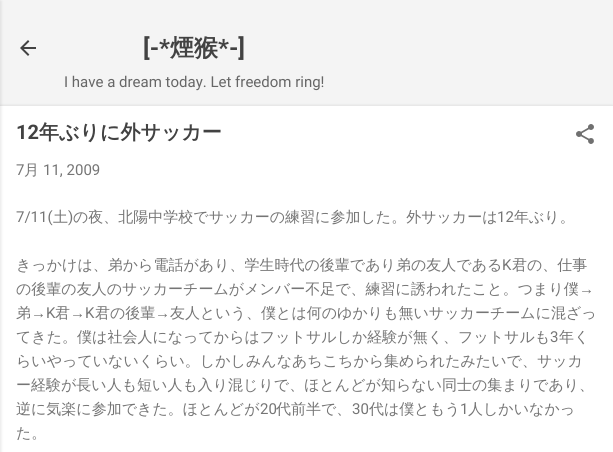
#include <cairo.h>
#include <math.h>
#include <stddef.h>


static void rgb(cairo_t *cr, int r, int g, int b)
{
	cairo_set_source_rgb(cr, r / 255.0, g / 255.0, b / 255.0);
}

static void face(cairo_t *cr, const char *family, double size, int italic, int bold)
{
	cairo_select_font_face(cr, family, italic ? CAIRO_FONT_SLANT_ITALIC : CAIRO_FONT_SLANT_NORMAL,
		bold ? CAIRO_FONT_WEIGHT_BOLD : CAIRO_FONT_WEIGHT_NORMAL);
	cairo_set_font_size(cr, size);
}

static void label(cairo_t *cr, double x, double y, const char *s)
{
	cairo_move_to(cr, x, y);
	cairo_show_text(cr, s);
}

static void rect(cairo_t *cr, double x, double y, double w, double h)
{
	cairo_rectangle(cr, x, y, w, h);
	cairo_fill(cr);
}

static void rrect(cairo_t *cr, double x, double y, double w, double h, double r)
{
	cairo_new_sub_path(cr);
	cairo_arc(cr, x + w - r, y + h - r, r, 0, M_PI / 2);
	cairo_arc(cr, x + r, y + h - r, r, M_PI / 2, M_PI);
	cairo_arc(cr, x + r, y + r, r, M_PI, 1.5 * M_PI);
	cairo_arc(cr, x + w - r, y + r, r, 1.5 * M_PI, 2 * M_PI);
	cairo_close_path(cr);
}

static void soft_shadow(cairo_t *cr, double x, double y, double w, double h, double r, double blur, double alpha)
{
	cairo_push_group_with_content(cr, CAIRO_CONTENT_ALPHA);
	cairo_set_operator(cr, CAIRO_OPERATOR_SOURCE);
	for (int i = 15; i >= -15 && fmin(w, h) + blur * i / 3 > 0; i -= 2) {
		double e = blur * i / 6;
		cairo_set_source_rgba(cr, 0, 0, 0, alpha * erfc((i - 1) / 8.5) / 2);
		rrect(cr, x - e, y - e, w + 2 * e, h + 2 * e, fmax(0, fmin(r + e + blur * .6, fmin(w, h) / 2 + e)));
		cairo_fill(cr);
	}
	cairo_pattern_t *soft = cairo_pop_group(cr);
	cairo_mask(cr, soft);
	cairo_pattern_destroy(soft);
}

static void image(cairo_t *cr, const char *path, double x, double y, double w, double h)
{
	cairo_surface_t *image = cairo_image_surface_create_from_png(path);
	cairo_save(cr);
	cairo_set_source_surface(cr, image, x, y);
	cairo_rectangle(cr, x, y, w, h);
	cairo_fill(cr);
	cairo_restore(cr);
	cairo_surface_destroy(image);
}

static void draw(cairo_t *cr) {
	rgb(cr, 244, 244, 244);
	cairo_paint(cr);
	rgb(cr, 60, 64, 67);
	soft_shadow(cr, 0, 107, 613, 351, 0, 2, 0.3);
	rgb(cr, 255, 255, 255);
	rect(cr, 0, 106, 613, 346);
	rgb(cr, 0, 0, 0);
	soft_shadow(cr, -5, 1, 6, 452, 0, 1.5, 0.1);
	image(cr, "image0.png", 20, 40, 16, 16);
	face(cr, "Roboto", 24, 0, 1);
	rgb(cr, 66, 66, 66);
	label(cr, 143, 56, "[-*");
	face(cr, "WenQuanYi Zen Hei", 24, 0, 1);
	label(cr, 170, 56, "煙猴");
	face(cr, "Roboto", 24, 0, 1);
	label(cr, 218, 56, "*-]");
	face(cr, "Roboto", 15, 0, 0);
	rgb(cr, 102, 102, 102);
	label(cr, 64, 87, "I have a dream today. Let freedom ring!");
	face(cr, "Roboto", 20, 0, 1);
	rgb(cr, 66, 66, 66);
	label(cr, 16, 139, "12");
	face(cr, "WenQuanYi Zen Hei", 20, 0, 1);
	label(cr, 39, 139, "年ぶりに外サッカー");
	image(cr, "image1.png", 576, 124, 18, 20);
	face(cr, "Roboto", 15, 0, 0);
	rgb(cr, 117, 117, 117);
	label(cr, 16, 175, "7");
	face(cr, "WenQuanYi Zen Hei Medium", 15, 0, 0);
	label(cr, 24, 175, "月");
	face(cr, "Roboto", 15, 0, 0);
	label(cr, 43, 175, "11, 2009");
	label(cr, 16, 222, "7/11(");
	face(cr, "WenQuanYi Zen Hei Medium", 15, 0, 0);
	label(cr, 53, 222, "土");
	face(cr, "Roboto", 15, 0, 0);
	label(cr, 68, 222, ")");
	face(cr, "WenQuanYi Zen Hei Medium", 15, 0, 0);
	label(cr, 73, 222, "の夜、北陽中学校でサッカーの練習に参加した。外サッカーは");
	face(cr, "Roboto", 15, 0, 0);
	label(cr, 497, 222, "12");
	face(cr, "WenQuanYi Zen Hei Medium", 15, 0, 0);
	label(cr, 514, 222, "年ぶり。");
	label(cr, 16, 270, "きっかけは、弟から電話があり、学生時代の後輩であり弟の友人である");
	face(cr, "Roboto", 15, 0, 0);
	label(cr, 502, 270, "K");
	face(cr, "WenQuanYi Zen Hei Medium", 15, 0, 0);
	label(cr, 512, 270, "君の、仕事");
	label(cr, 16, 294, "の後輩の友人のサッカーチームがメンバー不足で、練習に誘われたこと。つまり僕");
	face(cr, "Liberation Sans", 15, 0, 0);
	label(cr, 579, 294, "→");
	face(cr, "WenQuanYi Zen Hei Medium", 15, 0, 0);
	label(cr, 16, 318, "弟");
	face(cr, "Liberation Sans", 15, 0, 0);
	label(cr, 31, 318, "→");
	face(cr, "Roboto", 15, 0, 0);
	label(cr, 46, 318, "K");
	face(cr, "WenQuanYi Zen Hei Medium", 15, 0, 0);
	label(cr, 55, 318, "君");
	face(cr, "Liberation Sans", 15, 0, 0);
	label(cr, 70, 318, "→");
	face(cr, "Roboto", 15, 0, 0);
	label(cr, 85, 318, "K");
	face(cr, "WenQuanYi Zen Hei Medium", 15, 0, 0);
	label(cr, 95, 318, "君の後輩");
	face(cr, "Liberation Sans", 15, 0, 0);
	label(cr, 155, 318, "→");
	face(cr, "WenQuanYi Zen Hei Medium", 15, 0, 0);
	label(cr, 170, 318, "友人という、僕とは何のゆかりも無いサッカーチームに混ざっ");
	label(cr, 16, 342, "てきた。僕は社会人になってからはフットサルしか経験が無く、フットサルも");
	face(cr, "Roboto", 15, 0, 0);
	label(cr, 550, 342, "3");
	face(cr, "WenQuanYi Zen Hei Medium", 15, 0, 0);
	label(cr, 559, 342, "年く");
	label(cr, 16, 366, "らいやっていないくらい。しかしみんなあちこちから集められたみたいで、サッカ");
	label(cr, 16, 390, "ー経験が長い人も短い人も入り混じりで、ほとんどが知らない同士の集まりであり、");
	label(cr, 16, 414, "逆に気楽に参加できた。ほとんどが");
	face(cr, "Roboto", 15, 0, 0);
	label(cr, 260, 414, "20");
	face(cr, "WenQuanYi Zen Hei Medium", 15, 0, 0);
	label(cr, 276, 414, "代前半で、");
	face(cr, "Roboto", 15, 0, 0);
	label(cr, 352, 414, "30");
	face(cr, "WenQuanYi Zen Hei Medium", 15, 0, 0);
	label(cr, 369, 414, "代は僕ともう");
	face(cr, "Roboto", 15, 0, 0);
	label(cr, 460, 414, "1");
	face(cr, "WenQuanYi Zen Hei Medium", 15, 0, 0);
	label(cr, 468, 414, "人しかいなかっ");
	label(cr, 16, 438, "た。");
}

int main(void) {
	cairo_surface_t *surface = cairo_image_surface_create(CAIRO_FORMAT_RGB24, 613, 452);
	cairo_t *cr = cairo_create(surface);
	cairo_font_options_t *options = cairo_font_options_create();
	cairo_font_options_set_hint_metrics(options, CAIRO_HINT_METRICS_OFF);
	cairo_font_options_set_hint_style(options, CAIRO_HINT_STYLE_NONE);
	cairo_set_font_options(cr, options);
	cairo_set_miter_limit(cr, 4);
	draw(cr);
	cairo_surface_write_to_png(surface, "render.png");
	cairo_font_options_destroy(options);
	cairo_destroy(cr);
	cairo_surface_destroy(surface);
	return 0;
}
